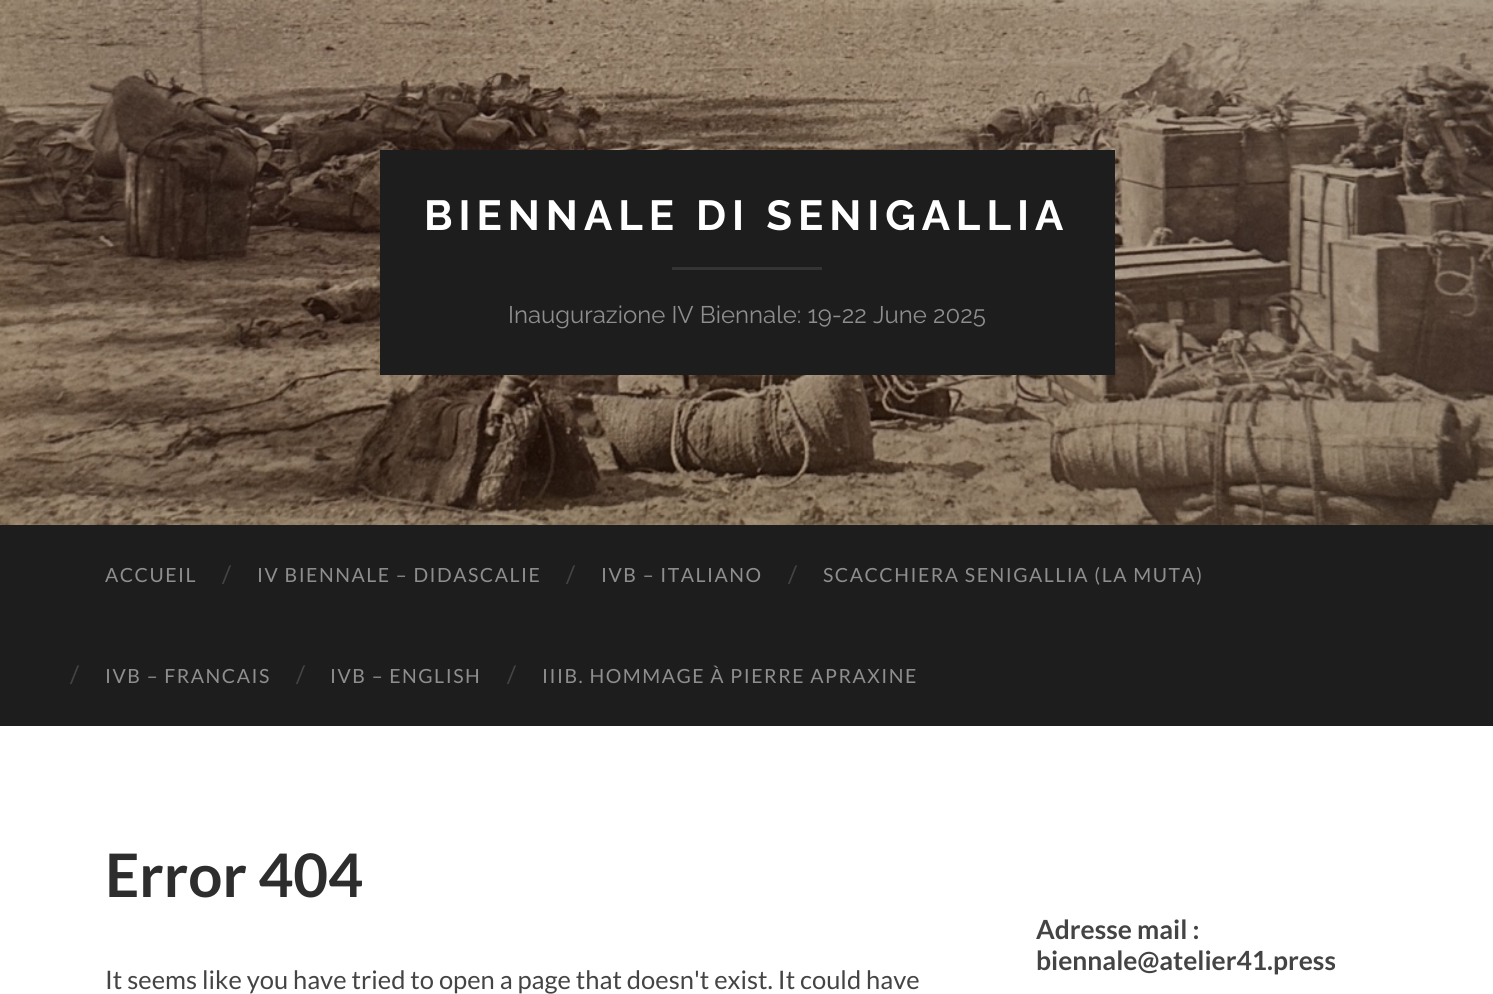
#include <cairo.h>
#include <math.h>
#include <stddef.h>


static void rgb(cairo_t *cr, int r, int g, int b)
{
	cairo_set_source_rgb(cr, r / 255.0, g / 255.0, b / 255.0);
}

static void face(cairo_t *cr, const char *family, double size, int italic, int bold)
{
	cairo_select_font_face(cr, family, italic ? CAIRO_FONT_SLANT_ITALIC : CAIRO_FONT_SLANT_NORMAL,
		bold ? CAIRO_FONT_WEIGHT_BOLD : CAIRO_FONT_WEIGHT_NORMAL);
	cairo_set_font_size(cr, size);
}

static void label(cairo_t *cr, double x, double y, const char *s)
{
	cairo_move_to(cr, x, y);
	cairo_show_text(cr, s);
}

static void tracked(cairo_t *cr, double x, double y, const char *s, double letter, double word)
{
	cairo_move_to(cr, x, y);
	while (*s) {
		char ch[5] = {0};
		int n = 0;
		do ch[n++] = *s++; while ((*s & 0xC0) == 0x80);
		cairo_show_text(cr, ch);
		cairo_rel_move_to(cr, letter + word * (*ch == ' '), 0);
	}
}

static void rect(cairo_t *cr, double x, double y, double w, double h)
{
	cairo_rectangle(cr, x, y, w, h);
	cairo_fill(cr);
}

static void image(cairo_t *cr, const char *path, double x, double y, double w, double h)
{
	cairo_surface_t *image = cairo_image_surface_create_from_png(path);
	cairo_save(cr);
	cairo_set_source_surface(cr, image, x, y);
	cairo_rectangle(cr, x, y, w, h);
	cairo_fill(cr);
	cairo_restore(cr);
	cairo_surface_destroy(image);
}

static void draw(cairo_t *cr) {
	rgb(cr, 255, 255, 255);
	cairo_paint(cr);
	image(cr, "image0.png", 0, 0, 1493, 525);
	rgb(cr, 29, 29, 29);
	rect(cr, 380, 150, 735, 225);
	face(cr, "Raleway Thin", 42, 0, 0);
	rgb(cr, 255, 255, 255);
	tracked(cr, 424, 230, "BIENNALE DI SENIGALLIA", 6, 0);
	rgb(cr, 52, 52, 52);
	rect(cr, 672, 267, 150, 3);
	face(cr, "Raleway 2 Thin", 24, 0, 0);
	rgb(cr, 142, 142, 142);
	label(cr, 508, 323, "Inaugurazione IV Biennale: 19-22 June 2025");
	rgb(cr, 29, 29, 29);
	rect(cr, 0, 525, 1493, 201);
	face(cr, "Lato", 19.5, 0, 0);
	rgb(cr, 142, 142, 142);
	tracked(cr, 105, 582, "ACCUEIL", 1.5, 0);
	face(cr, "Lato", 24, 0, 0);
	rgb(cr, 68, 68, 68);
	label(cr, 222, 583, "/");
	face(cr, "Lato", 19.5, 0, 0);
	rgb(cr, 142, 142, 142);
	tracked(cr, 257, 582, "IV BIENNALE – DIDASCALIE", 1.5, 0);
	face(cr, "Lato", 24, 0, 0);
	rgb(cr, 68, 68, 68);
	label(cr, 566, 583, "/");
	face(cr, "Lato", 19.5, 0, 0);
	rgb(cr, 142, 142, 142);
	tracked(cr, 601, 582, "IVB – ITALIANO", 1.5, 0);
	face(cr, "Lato", 24, 0, 0);
	rgb(cr, 68, 68, 68);
	label(cr, 788, 583, "/");
	face(cr, "Lato", 19.5, 0, 0);
	rgb(cr, 142, 142, 142);
	tracked(cr, 823, 582, "SCACCHIERA SENIGALLIA (LA MUTA)", 1.5, 0);
	face(cr, "Lato", 24, 0, 0);
	rgb(cr, 68, 68, 68);
	label(cr, 70, 683, "/");
	face(cr, "Lato", 19.5, 0, 0);
	rgb(cr, 142, 142, 142);
	tracked(cr, 105, 683, "IVB – FRANCAIS", 1.5, 0);
	face(cr, "Lato", 24, 0, 0);
	rgb(cr, 68, 68, 68);
	label(cr, 296, 683, "/");
	face(cr, "Lato", 19.5, 0, 0);
	rgb(cr, 142, 142, 142);
	tracked(cr, 330, 683, "IVB – ENGLISH", 1.5, 0);
	face(cr, "Lato", 24, 0, 0);
	rgb(cr, 68, 68, 68);
	label(cr, 507, 683, "/");
	face(cr, "Lato", 19.5, 0, 0);
	rgb(cr, 142, 142, 142);
	tracked(cr, 542, 683, "IIIB. HOMMAGE À PIERRE APRAXINE", 1.5, 0);
	face(cr, "Lato", 60, 0, 1);
	rgb(cr, 45, 45, 45);
	label(cr, 105, 897, "Error 404");
	face(cr, "Lato", 25.5, 0, 0);
	rgb(cr, 68, 68, 68);
	label(cr, 105, 989, "It seems like you have tried to open a page that doesn't exist. It could have");
	face(cr, "Lato", 26.4, 0, 1);
	label(cr, 1036, 939, "Adresse mail :");
	label(cr, 1036, 970, "biennale@atelier41.press");
}

int main(void) {
	cairo_surface_t *surface = cairo_image_surface_create(CAIRO_FORMAT_RGB24, 1493, 994);
	cairo_t *cr = cairo_create(surface);
	cairo_font_options_t *options = cairo_font_options_create();
	cairo_font_options_set_hint_metrics(options, CAIRO_HINT_METRICS_OFF);
	cairo_font_options_set_hint_style(options, CAIRO_HINT_STYLE_NONE);
	cairo_set_font_options(cr, options);
	cairo_set_miter_limit(cr, 4);
	draw(cr);
	cairo_surface_write_to_png(surface, "render.png");
	cairo_font_options_destroy(options);
	cairo_destroy(cr);
	cairo_surface_destroy(surface);
	return 0;
}
